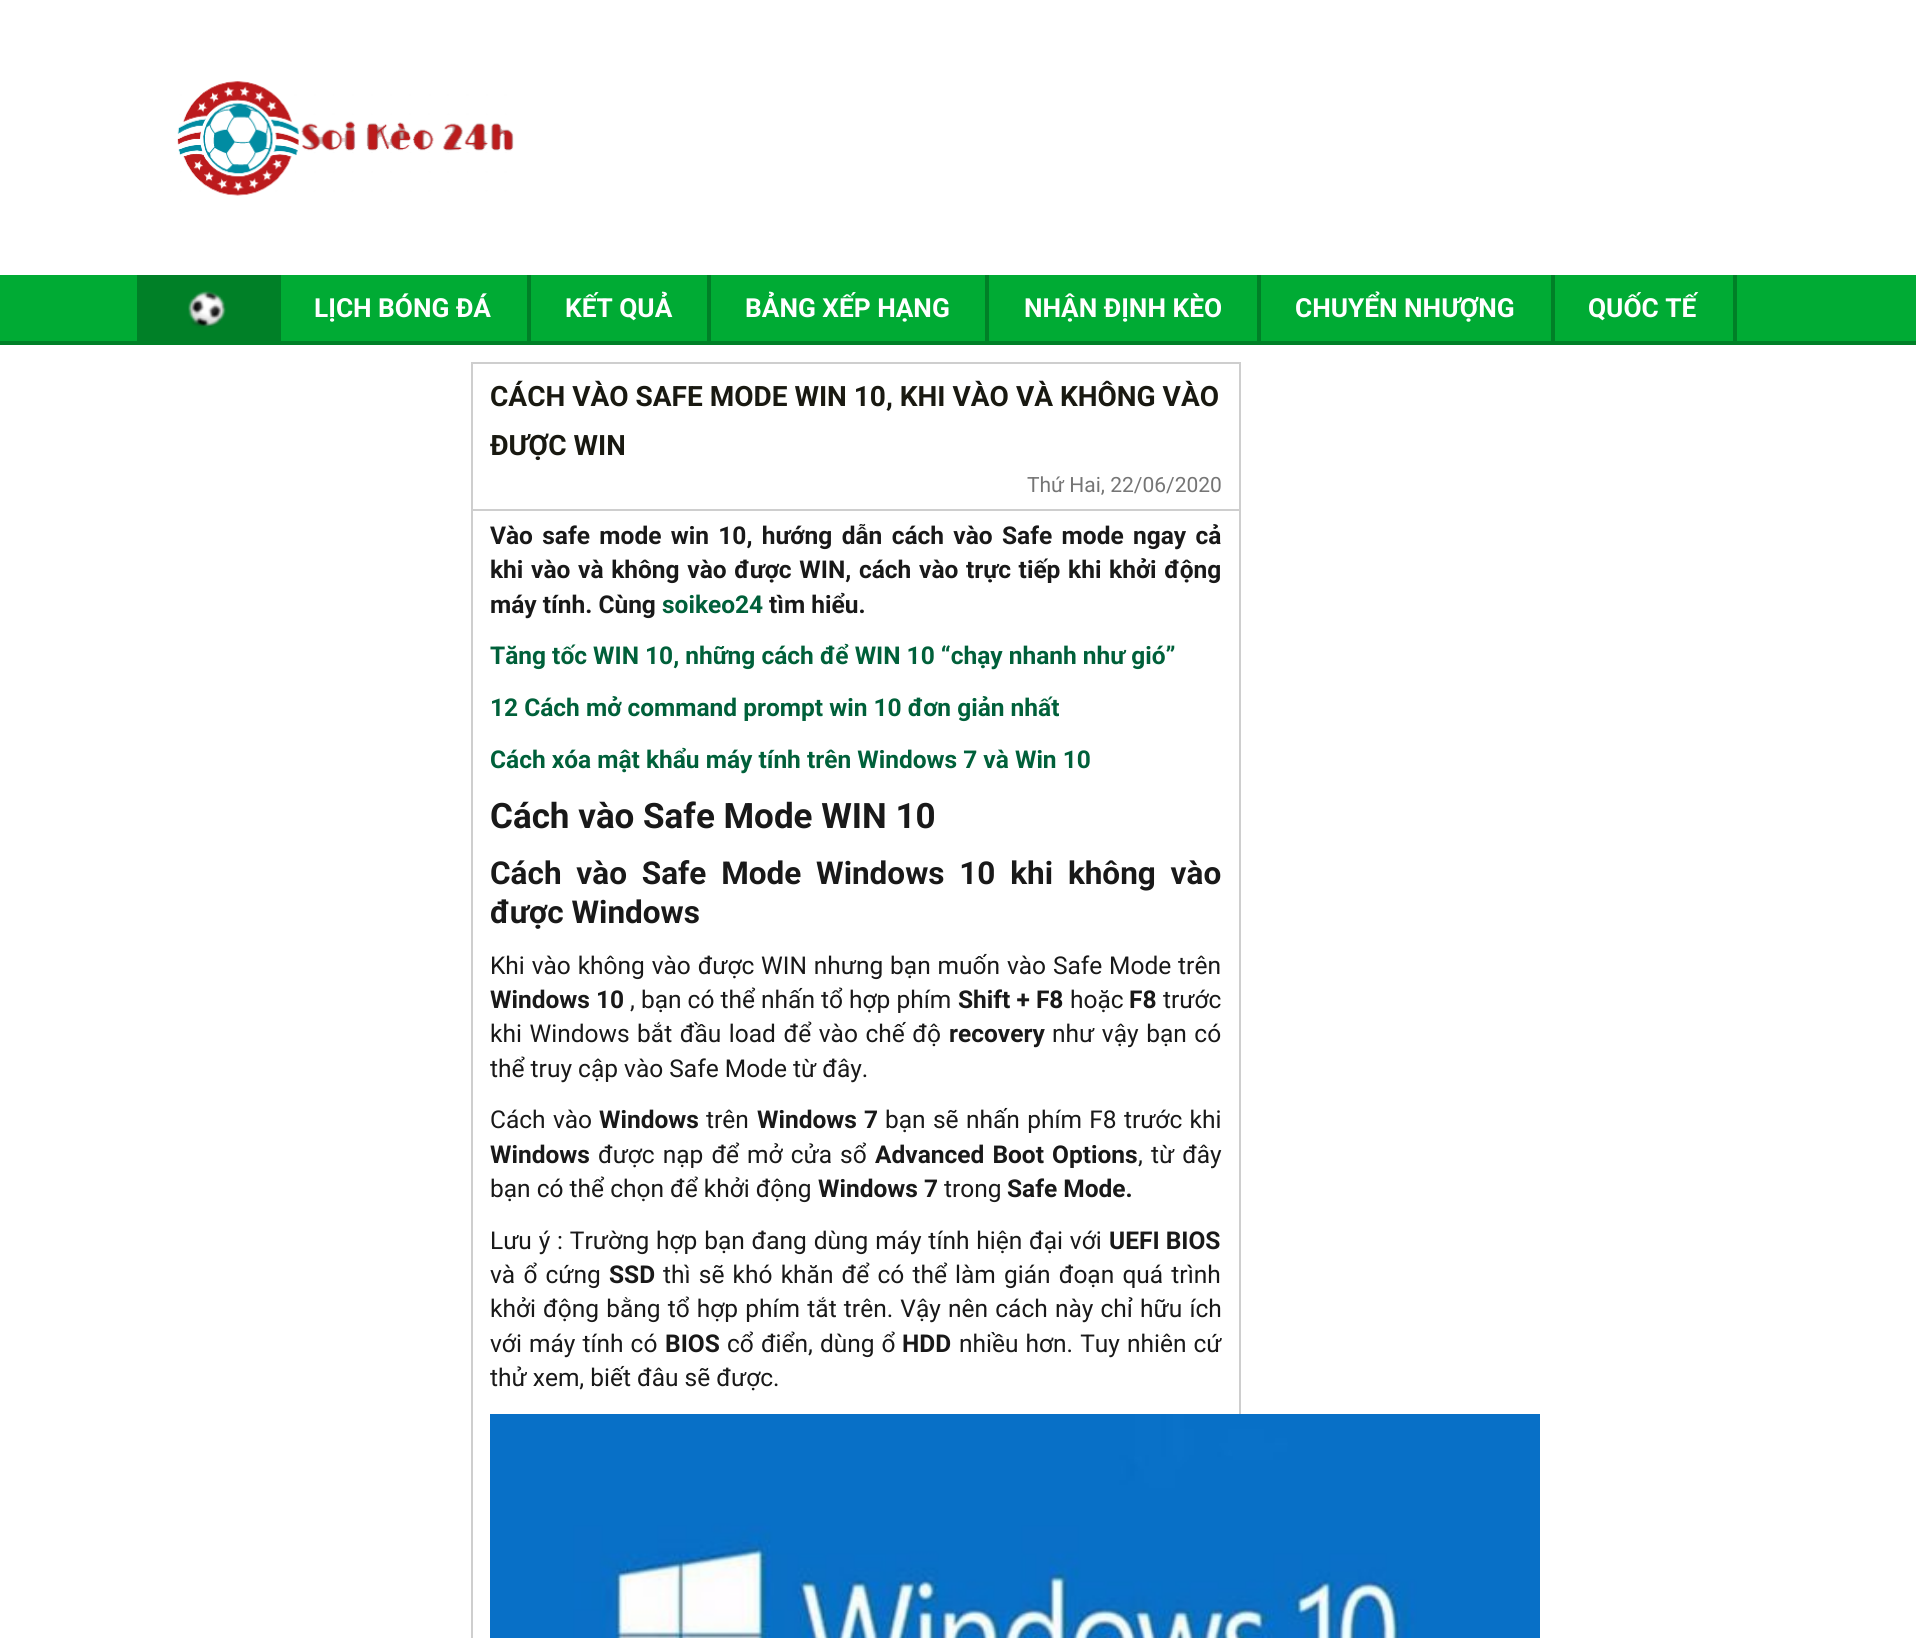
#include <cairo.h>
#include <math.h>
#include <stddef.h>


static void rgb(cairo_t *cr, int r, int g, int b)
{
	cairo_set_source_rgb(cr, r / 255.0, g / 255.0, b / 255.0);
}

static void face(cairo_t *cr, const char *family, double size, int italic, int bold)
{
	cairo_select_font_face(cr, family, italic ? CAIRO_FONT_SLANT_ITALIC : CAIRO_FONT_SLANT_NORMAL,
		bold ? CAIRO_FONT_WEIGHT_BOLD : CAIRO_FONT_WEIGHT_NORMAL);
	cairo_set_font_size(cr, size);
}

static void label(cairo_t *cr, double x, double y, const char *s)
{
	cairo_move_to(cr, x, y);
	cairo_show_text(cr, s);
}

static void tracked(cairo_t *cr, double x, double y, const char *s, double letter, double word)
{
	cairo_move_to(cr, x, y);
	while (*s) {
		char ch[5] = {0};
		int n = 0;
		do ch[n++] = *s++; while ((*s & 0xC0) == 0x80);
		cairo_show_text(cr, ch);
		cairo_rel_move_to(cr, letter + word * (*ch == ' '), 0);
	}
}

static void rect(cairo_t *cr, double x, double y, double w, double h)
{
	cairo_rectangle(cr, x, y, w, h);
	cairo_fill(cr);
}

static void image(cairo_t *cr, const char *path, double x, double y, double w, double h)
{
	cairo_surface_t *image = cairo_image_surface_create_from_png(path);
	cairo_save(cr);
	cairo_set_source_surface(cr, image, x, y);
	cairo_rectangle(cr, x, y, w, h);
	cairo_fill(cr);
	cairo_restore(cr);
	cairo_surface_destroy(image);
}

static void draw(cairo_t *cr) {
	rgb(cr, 255, 255, 255);
	cairo_paint(cr);
	image(cr, "image0.png", 177, 81, 337, 115);
	rgb(cr, 0, 171, 52);
	rect(cr, 0, 275, 1916, 66);
	rgb(cr, 0, 128, 39);
	rect(cr, 0, 341, 1916, 4);
	rect(cr, 137, 275, 140, 66);
	rect(cr, 277, 275, 4, 70);
	image(cr, "image1.png", 188, 290, 38, 38);
	rect(cr, 527, 275, 4, 66);
	face(cr, "Roboto", 26.25, 0, 1);
	rgb(cr, 255, 255, 255);
	label(cr, 314, 317, "LỊCH BÓNG ĐÁ");
	rgb(cr, 0, 128, 39);
	rect(cr, 707, 275, 4, 66);
	rgb(cr, 255, 255, 255);
	label(cr, 565, 317, "KẾT QUẢ");
	rgb(cr, 0, 128, 39);
	rect(cr, 985, 275, 4, 66);
	rgb(cr, 255, 255, 255);
	label(cr, 745, 317, "BẢNG XẾP HẠNG");
	rgb(cr, 0, 128, 39);
	rect(cr, 1257, 275, 4, 66);
	rgb(cr, 255, 255, 255);
	label(cr, 1024, 317, "NHẬN ĐỊNH KÈO");
	rgb(cr, 0, 128, 39);
	rect(cr, 1551, 275, 4, 66);
	rgb(cr, 255, 255, 255);
	label(cr, 1295, 317, "CHUYỂN NHƯỢNG");
	rgb(cr, 0, 128, 39);
	rect(cr, 1733, 275, 4, 66);
	rgb(cr, 255, 255, 255);
	label(cr, 1588, 317, "QUỐC TẾ");
	rgb(cr, 206, 206, 206);
	rect(cr, 471, 362, 770, 2);
	rect(cr, 1239, 362, 2, 147);
	rect(cr, 471, 362, 2, 147);
	face(cr, "Roboto", 28, 0, 1);
	rgb(cr, 25, 25, 17);
	label(cr, 490, 406, "CÁCH VÀO SAFE MODE WIN 10, KHI VÀO VÀ KHÔNG VÀO");
	label(cr, 490, 455, "ĐƯỢC WIN");
	face(cr, "Roboto", 21, 0, 0);
	rgb(cr, 117, 117, 117);
	label(cr, 1027, 492, "Thứ Hai, 22/06/2020");
	cairo_rectangle(cr, 472, 510, 768, 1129);
	rgb(cr, 206, 206, 206);
	cairo_stroke(cr);
	face(cr, "Roboto", 24.5, 0, 1);
	rgb(cr, 25, 25, 25);
	tracked(cr, 490, 544, "Vào safe mode win 10, hướng dẫn cách vào Safe mode ngay cả", 0, 3.25);
	tracked(cr, 490, 578, "khi vào và không vào được WIN, cách vào trực tiếp khi khởi động", 0, 1.6);
	label(cr, 490, 613, "máy tính. Cùng");
	rgb(cr, 0, 96, 58);
	label(cr, 662, 613, "soikeo24");
	rgb(cr, 25, 25, 25);
	label(cr, 769, 613, "tìm hiểu.");
	rgb(cr, 0, 96, 58);
	label(cr, 490, 664, "Tăng tốc WIN 10, những cách để WIN 10 “chạy nhanh như gió”");
	label(cr, 490, 716, "12 Cách mở command prompt win 10 đơn giản nhất");
	label(cr, 490, 768, "Cách xóa mật khẩu máy tính trên Windows 7 và Win 10");
	face(cr, "Roboto", 35, 0, 1);
	rgb(cr, 25, 25, 25);
	label(cr, 490, 828, "Cách vào Safe Mode WIN 10");
	face(cr, "Roboto", 31.5, 0, 1);
	tracked(cr, 490, 884, "Cách vào Safe Mode Windows 10 khi không vào", 0, 7);
	label(cr, 490, 923, "được Windows");
	face(cr, "Roboto", 24.5, 0, 0);
	tracked(cr, 490, 974, "Khi vào không vào được WIN nhưng bạn muốn vào Safe Mode trên", 0, 0.75);
	face(cr, "Roboto", 24.5, 0, 1);
	label(cr, 490, 1008, "Windows 10");
	face(cr, "Roboto", 24.5, 0, 0);
	label(cr, 630, 1008, ", bạn có thể nhấn tổ hợp phím");
	face(cr, "Roboto", 24.5, 0, 1);
	label(cr, 958, 1008, "Shift + F8");
	face(cr, "Roboto", 24.5, 0, 0);
	label(cr, 1070, 1008, "hoặc");
	face(cr, "Roboto", 24.5, 0, 1);
	label(cr, 1129, 1008, "F8");
	face(cr, "Roboto", 24.5, 0, 0);
	label(cr, 1163, 1008, "trước");
	tracked(cr, 490, 1042, "khi Windows bắt đầu load để vào chế độ", 0, 1.5);
	face(cr, "Roboto", 24.5, 0, 1);
	label(cr, 949, 1042, "recovery");
	face(cr, "Roboto", 24.5, 0, 0);
	tracked(cr, 1052, 1042, "như vậy bạn có", 0, 1.5);
	label(cr, 490, 1077, "thể truy cập vào Safe Mode từ đây.");
	tracked(cr, 490, 1128, "Cách vào", 0, 1.25);
	face(cr, "Roboto", 24.5, 0, 1);
	label(cr, 599, 1128, "Windows");
	face(cr, "Roboto", 24.5, 0, 0);
	label(cr, 706, 1128, "trên");
	face(cr, "Roboto", 24.5, 0, 1);
	tracked(cr, 757, 1128, "Windows 7", 0, 1);
	face(cr, "Roboto", 24.5, 0, 0);
	tracked(cr, 885, 1128, "bạn sẽ nhấn phím F8 trước khi", 0, 1.25);
	face(cr, "Roboto", 24.5, 0, 1);
	label(cr, 490, 1163, "Windows");
	face(cr, "Roboto", 24.5, 0, 0);
	tracked(cr, 598, 1163, "được nạp để mở cửa sổ", 0, 2);
	face(cr, "Roboto", 24.5, 0, 1);
	tracked(cr, 875, 1163, "Advanced Boot Options", 0, 2);
	face(cr, "Roboto", 24.5, 0, 0);
	tracked(cr, 1138, 1163, ", từ đây", 0, 2);
	label(cr, 490, 1197, "bạn có thể chọn để khởi động");
	face(cr, "Roboto", 24.5, 0, 1);
	label(cr, 818, 1197, "Windows 7");
	face(cr, "Roboto", 24.5, 0, 0);
	label(cr, 944, 1197, "trong");
	face(cr, "Roboto", 24.5, 0, 1);
	label(cr, 1007, 1197, "Safe Mode.");
	face(cr, "Roboto", 24.5, 0, 0);
	tracked(cr, 490, 1249, "Lưu ý : Trường hợp bạn đang dùng máy tính hiện đại với", 0, 0.75);
	face(cr, "Roboto", 24.5, 0, 1);
	label(cr, 1109, 1249, "UEFI BIOS");
	face(cr, "Roboto", 24.5, 0, 0);
	tracked(cr, 490, 1283, "và ổ cứng", 0, 2.1);
	face(cr, "Roboto", 24.5, 0, 1);
	label(cr, 609, 1283, "SSD");
	face(cr, "Roboto", 24.5, 0, 0);
	tracked(cr, 663, 1283, "thì sẽ khó khăn để có thể làm gián đoạn quá trình", 0, 2.1);
	tracked(cr, 490, 1317, "khởi động bằng tổ hợp phím tắt trên. Vậy nên cách này chỉ hữu ích", 0, 1.1);
	tracked(cr, 490, 1352, "với máy tính có", 0, 1);
	face(cr, "Roboto", 24.5, 0, 1);
	label(cr, 665, 1352, "BIOS");
	face(cr, "Roboto", 24.5, 0, 0);
	tracked(cr, 727, 1352, "cổ điển, dùng ổ", 0, 1);
	face(cr, "Roboto", 24.5, 0, 1);
	label(cr, 902, 1352, "HDD");
	face(cr, "Roboto", 24.5, 0, 0);
	tracked(cr, 959, 1352, "nhiều hơn. Tuy nhiên cứ", 0, 1);
	label(cr, 490, 1386, "thử xem, biết đâu sẽ được.");
	image(cr, "image2.png", 490, 1414, 1050, 224);
}

int main(void) {
	cairo_surface_t *surface = cairo_image_surface_create(CAIRO_FORMAT_RGB24, 1916, 1638);
	cairo_t *cr = cairo_create(surface);
	cairo_font_options_t *options = cairo_font_options_create();
	cairo_font_options_set_hint_metrics(options, CAIRO_HINT_METRICS_OFF);
	cairo_font_options_set_hint_style(options, CAIRO_HINT_STYLE_NONE);
	cairo_set_font_options(cr, options);
	cairo_set_miter_limit(cr, 4);
	draw(cr);
	cairo_surface_write_to_png(surface, "render.png");
	cairo_font_options_destroy(options);
	cairo_destroy(cr);
	cairo_surface_destroy(surface);
	return 0;
}
